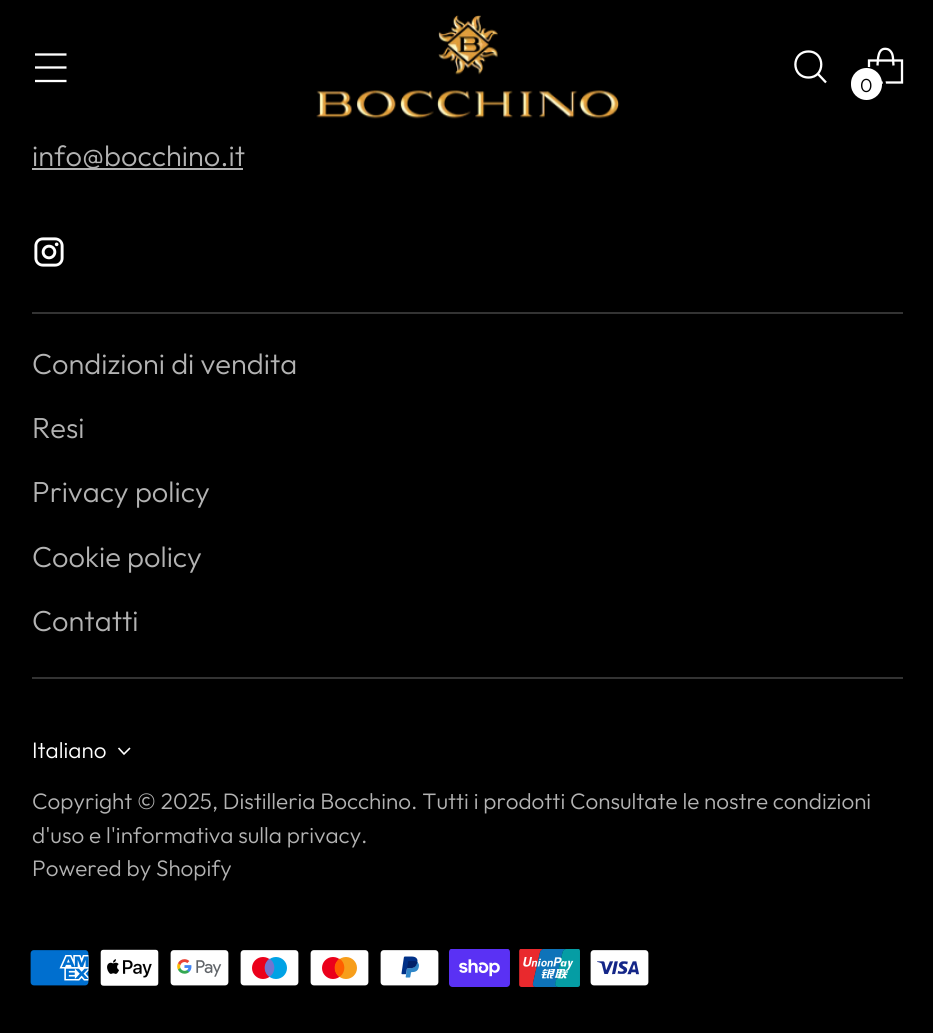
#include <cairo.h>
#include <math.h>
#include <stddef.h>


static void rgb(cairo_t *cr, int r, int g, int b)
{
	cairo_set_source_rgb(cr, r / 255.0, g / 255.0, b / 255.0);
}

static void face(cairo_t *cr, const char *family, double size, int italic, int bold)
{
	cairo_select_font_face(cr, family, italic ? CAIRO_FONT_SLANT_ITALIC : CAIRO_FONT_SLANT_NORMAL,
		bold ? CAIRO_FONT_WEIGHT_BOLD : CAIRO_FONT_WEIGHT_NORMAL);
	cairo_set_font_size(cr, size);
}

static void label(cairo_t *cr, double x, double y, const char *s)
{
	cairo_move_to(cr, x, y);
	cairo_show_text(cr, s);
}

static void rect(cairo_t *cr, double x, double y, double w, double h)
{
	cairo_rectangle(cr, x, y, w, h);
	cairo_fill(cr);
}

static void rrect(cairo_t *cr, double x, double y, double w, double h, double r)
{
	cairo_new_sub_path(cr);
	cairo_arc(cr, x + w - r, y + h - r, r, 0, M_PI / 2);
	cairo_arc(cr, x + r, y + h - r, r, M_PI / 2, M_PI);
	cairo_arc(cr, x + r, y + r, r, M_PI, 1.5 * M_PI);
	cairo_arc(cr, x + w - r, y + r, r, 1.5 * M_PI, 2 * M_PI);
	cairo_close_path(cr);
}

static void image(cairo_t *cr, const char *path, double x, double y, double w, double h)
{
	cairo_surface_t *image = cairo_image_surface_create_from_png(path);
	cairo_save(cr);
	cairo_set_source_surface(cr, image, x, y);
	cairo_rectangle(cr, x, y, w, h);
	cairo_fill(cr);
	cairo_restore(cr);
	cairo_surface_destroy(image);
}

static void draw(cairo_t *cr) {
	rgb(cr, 0, 0, 0);
	cairo_paint(cr);
	cairo_new_path(cr);
	cairo_move_to(cr, 35, 67.5);
	cairo_line_to(cr, 66.5, 67.5);
	cairo_move_to(cr, 35, 54.5);
	cairo_line_to(cr, 66.5, 54.5);
	cairo_move_to(cr, 35, 81);
	cairo_line_to(cr, 66.5, 81);
	rgb(cr, 255, 255, 255);
	cairo_set_line_width(cr, 2.3);
	cairo_stroke(cr);
	image(cr, "image0.png", 316, 15, 304, 104);
	cairo_new_path(cr);
	cairo_move_to(cr, 808.5, 77.5);
	cairo_curve_to(cr, 825.5, 77.5, 825.5, 51.5, 808.5, 51.5);
	cairo_curve_to(cr, 791, 51.5, 791, 77.5, 808.5, 77.5);
	cairo_close_path(cr);
	cairo_set_line_cap(cr, CAIRO_LINE_CAP_ROUND);
	cairo_stroke(cr);
	cairo_new_path(cr);
	cairo_move_to(cr, 818, 74);
	cairo_line_to(cr, 826, 82.5);
	cairo_set_line_cap(cr, CAIRO_LINE_CAP_BUTT);
	cairo_stroke(cr);
	cairo_new_path(cr);
	cairo_move_to(cr, 893.5, 65.5);
	cairo_curve_to(cr, 893, 61.5, 893.5, 57.5, 892, 53.5);
	cairo_curve_to(cr, 891, 51.5, 889.5, 49.5, 887, 49);
	cairo_curve_to(cr, 877.5, 47, 878, 59.5, 877.5, 65.5);
	cairo_set_line_join(cr, CAIRO_LINE_JOIN_BEVEL);
	cairo_stroke(cr);
	cairo_new_path(cr);
	cairo_move_to(cr, 902, 82.5);
	cairo_line_to(cr, 902, 60.5);
	cairo_line_to(cr, 869, 60.5);
	cairo_line_to(cr, 869, 82.5);
	cairo_close_path(cr);
	cairo_set_line_join(cr, CAIRO_LINE_JOIN_MITER);
	cairo_stroke(cr);
	rrect(cr, 850.5, 68.5, 34, 33, 16.5);
	rgb(cr, 0, 0, 0);
	cairo_set_line_width(cr, 3);
	cairo_stroke(cr);
	rgb(cr, 255, 255, 255);
	rrect(cr, 851, 68, 31, 32, 15.5);
	cairo_fill(cr);
	face(cr, "Outfit Light", 19, 0, 0);
	rgb(cr, 0, 0, 0);
	label(cr, 860, 92, "0");
	rgb(cr, 51, 51, 51);
	rect(cr, 32, 312, 871, 2);
	rgb(cr, 179, 179, 179);
	rect(cr, 32, 168, 211, 2);
	face(cr, "Outfit Light", 29, 0, 0);
	label(cr, 32, 166, "info@bocchino.it");
	image(cr, "image1.png", 34, 237, 30, 30);
	rgb(cr, 51, 51, 51);
	rect(cr, 32, 677, 871, 2);
	rgb(cr, 179, 179, 179);
	label(cr, 32, 374, "Condizioni di vendita");
	label(cr, 32, 438, "Resi");
	label(cr, 32, 502, "Privacy policy");
	label(cr, 32, 567, "Cookie policy");
	label(cr, 32, 631, "Contatti");
	face(cr, "Outfit Light", 22.45, 0, 0);
	rgb(cr, 255, 255, 255);
	label(cr, 32, 758, "Italiano");
	cairo_new_path(cr);
	cairo_move_to(cr, 118.5, 748);
	cairo_line_to(cr, 124, 754);
	cairo_line_to(cr, 130, 748);
	cairo_set_line_width(cr, 1.6);
	cairo_stroke(cr);
	rgb(cr, 179, 179, 179);
	label(cr, 32, 809, "Copyright © 2025, Distilleria Bocchino. Tutti i prodotti Consultate le nostre condizioni");
	label(cr, 32, 843, "d'uso e l'informativa sulla privacy.");
	label(cr, 32, 876, "Powered by Shopify");
	image(cr, "image2.png", 30, 950, 59, 36);
	image(cr, "image3.png", 100, 949, 59, 37);
	image(cr, "image4.png", 170, 950, 59, 36);
	image(cr, "image5.png", 240, 950, 59, 36);
	image(cr, "image6.png", 310, 950, 59, 36);
	image(cr, "image7.png", 380, 950, 59, 36);
	image(cr, "image8.png", 449, 949, 61, 38);
	image(cr, "image9.png", 519, 949, 61, 38);
	image(cr, "image10.png", 590, 950, 59, 36);
}

int main(void) {
	cairo_surface_t *surface = cairo_image_surface_create(CAIRO_FORMAT_RGB24, 933, 1033);
	cairo_t *cr = cairo_create(surface);
	cairo_font_options_t *options = cairo_font_options_create();
	cairo_font_options_set_hint_metrics(options, CAIRO_HINT_METRICS_OFF);
	cairo_font_options_set_hint_style(options, CAIRO_HINT_STYLE_NONE);
	cairo_set_font_options(cr, options);
	cairo_set_miter_limit(cr, 4);
	draw(cr);
	cairo_surface_write_to_png(surface, "render.png");
	cairo_font_options_destroy(options);
	cairo_destroy(cr);
	cairo_surface_destroy(surface);
	return 0;
}
